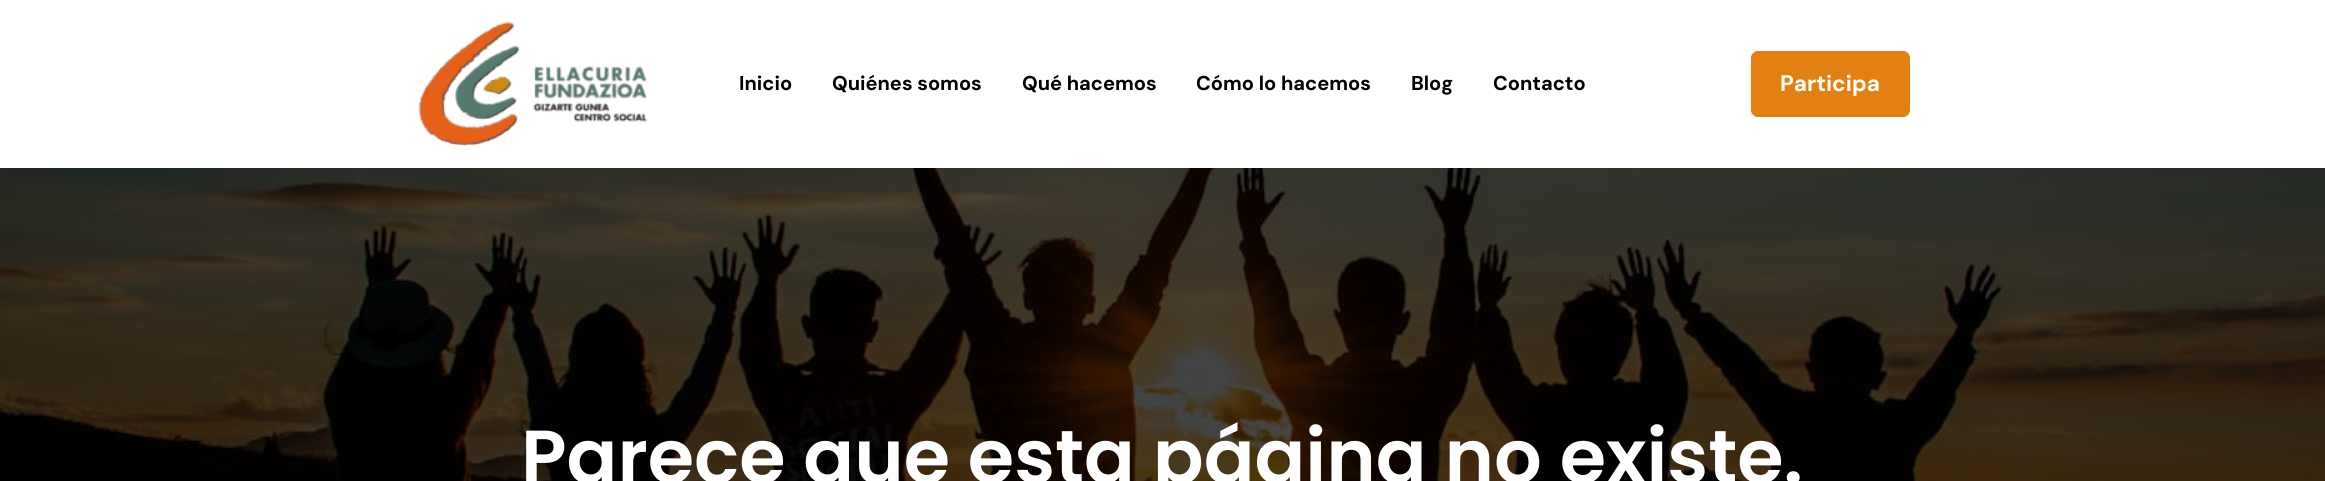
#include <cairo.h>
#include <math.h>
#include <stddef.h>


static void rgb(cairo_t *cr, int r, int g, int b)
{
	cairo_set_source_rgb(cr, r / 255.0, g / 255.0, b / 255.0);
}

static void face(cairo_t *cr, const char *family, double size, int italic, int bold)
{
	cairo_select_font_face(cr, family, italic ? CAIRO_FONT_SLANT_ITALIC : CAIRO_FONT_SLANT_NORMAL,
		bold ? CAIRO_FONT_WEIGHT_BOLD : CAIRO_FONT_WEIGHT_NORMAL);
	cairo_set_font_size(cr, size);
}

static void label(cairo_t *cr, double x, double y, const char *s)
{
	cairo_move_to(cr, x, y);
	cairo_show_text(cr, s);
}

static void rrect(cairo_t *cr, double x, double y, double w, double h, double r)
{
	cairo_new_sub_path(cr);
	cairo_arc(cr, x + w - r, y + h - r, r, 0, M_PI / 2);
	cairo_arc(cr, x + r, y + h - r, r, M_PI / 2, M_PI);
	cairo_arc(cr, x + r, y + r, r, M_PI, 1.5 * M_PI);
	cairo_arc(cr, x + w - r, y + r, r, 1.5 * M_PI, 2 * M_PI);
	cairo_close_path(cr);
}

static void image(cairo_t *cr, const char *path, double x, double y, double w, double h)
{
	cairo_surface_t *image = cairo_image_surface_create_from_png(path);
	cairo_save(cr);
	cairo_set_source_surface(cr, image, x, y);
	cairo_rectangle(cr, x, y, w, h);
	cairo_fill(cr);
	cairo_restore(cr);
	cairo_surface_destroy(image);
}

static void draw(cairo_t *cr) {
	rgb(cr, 255, 255, 255);
	cairo_paint(cr);
	image(cr, "image0.png", 418, 21, 230, 125);
	face(cr, "DM Sans", 20, 0, 1);
	rgb(cr, 0, 0, 0);
	label(cr, 739, 90, "Inicio");
	label(cr, 832, 90, "Quiénes somos");
	label(cr, 1022, 90, "Qué hacemos");
	label(cr, 1196, 90, "Cómo lo hacemos");
	label(cr, 1411, 90, "Blog");
	label(cr, 1493, 90, "Contacto");
	rgb(cr, 226, 128, 17);
	rrect(cr, 1749.5, 49.5, 162, 69, 8.5);
	cairo_fill_preserve(cr);
	rgb(cr, 255, 255, 255);
	cairo_set_line_width(cr, 3);
	cairo_stroke(cr);
	face(cr, "DM Sans", 22.5, 0, 1);
	label(cr, 1780, 91, "Participa");
	image(cr, "image1.png", 0, 168, 2325, 313);
	face(cr, "Poppins SemiBold", 75, 0, 0);
	label(cr, 521, 483, "Parece que esta página no existe.");
}

int main(void) {
	cairo_surface_t *surface = cairo_image_surface_create(CAIRO_FORMAT_RGB24, 2325, 481);
	cairo_t *cr = cairo_create(surface);
	cairo_font_options_t *options = cairo_font_options_create();
	cairo_font_options_set_hint_metrics(options, CAIRO_HINT_METRICS_OFF);
	cairo_font_options_set_hint_style(options, CAIRO_HINT_STYLE_NONE);
	cairo_set_font_options(cr, options);
	cairo_set_miter_limit(cr, 4);
	draw(cr);
	cairo_surface_write_to_png(surface, "render.png");
	cairo_font_options_destroy(options);
	cairo_destroy(cr);
	cairo_surface_destroy(surface);
	return 0;
}
